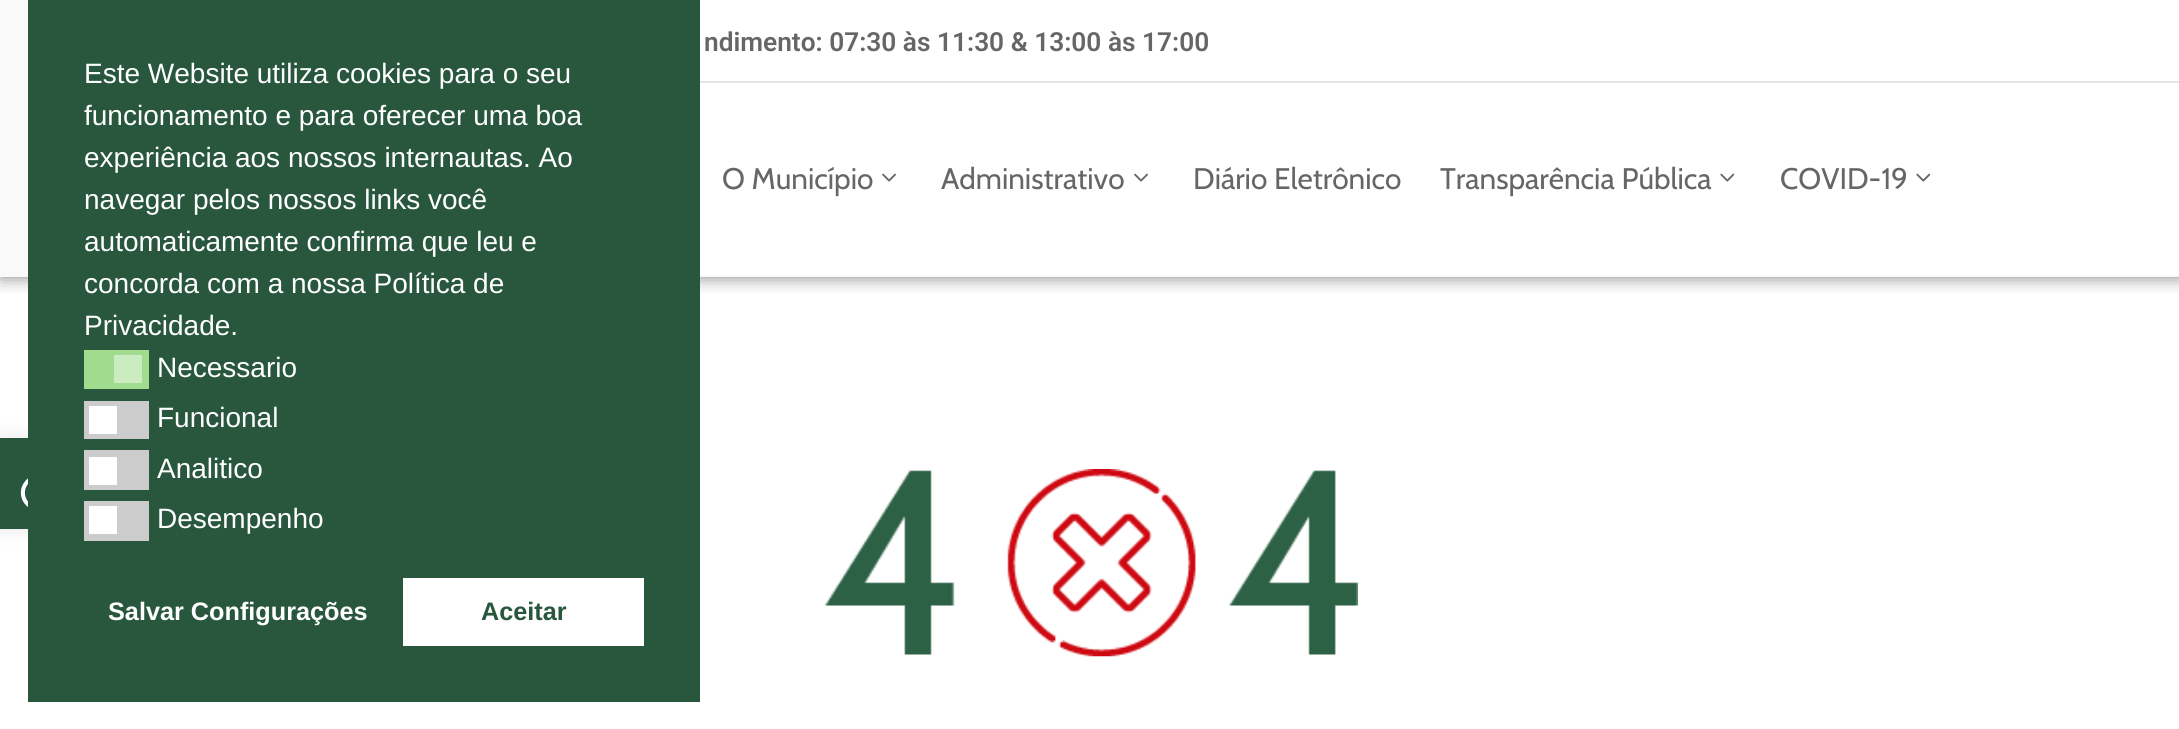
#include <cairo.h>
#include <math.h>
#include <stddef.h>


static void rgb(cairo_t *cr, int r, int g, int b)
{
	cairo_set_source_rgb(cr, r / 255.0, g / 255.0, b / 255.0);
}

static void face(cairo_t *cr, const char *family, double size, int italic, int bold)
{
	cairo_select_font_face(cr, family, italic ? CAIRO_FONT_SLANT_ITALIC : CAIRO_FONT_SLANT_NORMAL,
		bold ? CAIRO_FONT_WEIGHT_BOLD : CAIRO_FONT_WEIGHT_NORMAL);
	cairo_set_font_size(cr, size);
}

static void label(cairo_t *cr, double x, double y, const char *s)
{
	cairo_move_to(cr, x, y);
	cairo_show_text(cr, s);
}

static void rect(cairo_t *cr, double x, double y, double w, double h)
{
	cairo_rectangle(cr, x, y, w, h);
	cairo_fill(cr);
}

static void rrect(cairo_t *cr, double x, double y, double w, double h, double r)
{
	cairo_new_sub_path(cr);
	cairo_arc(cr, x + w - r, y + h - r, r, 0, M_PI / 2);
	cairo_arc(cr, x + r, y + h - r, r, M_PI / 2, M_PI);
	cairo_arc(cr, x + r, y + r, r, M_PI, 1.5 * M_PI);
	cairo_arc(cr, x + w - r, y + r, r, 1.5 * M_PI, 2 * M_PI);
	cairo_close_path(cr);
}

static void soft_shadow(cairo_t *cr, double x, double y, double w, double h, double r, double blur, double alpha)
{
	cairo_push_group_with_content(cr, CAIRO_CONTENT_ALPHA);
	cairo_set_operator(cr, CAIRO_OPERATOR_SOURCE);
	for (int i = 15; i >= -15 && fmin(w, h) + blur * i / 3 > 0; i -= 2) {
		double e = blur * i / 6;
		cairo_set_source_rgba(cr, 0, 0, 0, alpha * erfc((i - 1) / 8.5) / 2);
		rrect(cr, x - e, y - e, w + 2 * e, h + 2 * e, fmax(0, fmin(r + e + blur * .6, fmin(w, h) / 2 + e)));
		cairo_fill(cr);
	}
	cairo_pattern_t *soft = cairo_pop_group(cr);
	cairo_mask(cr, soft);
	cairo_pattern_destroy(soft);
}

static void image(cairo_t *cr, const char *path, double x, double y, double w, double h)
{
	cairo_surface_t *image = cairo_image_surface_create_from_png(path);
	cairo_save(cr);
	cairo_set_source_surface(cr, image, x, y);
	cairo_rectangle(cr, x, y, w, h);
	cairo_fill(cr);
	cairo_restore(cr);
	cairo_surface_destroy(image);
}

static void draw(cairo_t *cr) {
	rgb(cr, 255, 255, 255);
	cairo_paint(cr);
	rgb(cr, 0, 0, 0);
	soft_shadow(cr, 0, 438, 91, 91, 0, 9, 0.1);
	rgb(cr, 40, 87, 62);
	rect(cr, 0, 438, 28, 91);
	image(cr, "image0.png", 20, 478, 8, 29);
	cairo_save(cr);
	cairo_rectangle(cr, 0, 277, 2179, 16);
	cairo_clip(cr);
	rgb(cr, 0, 0, 0);
	soft_shadow(cr, 0, 0, 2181, 277, 0, 9, 0.5);
	cairo_restore(cr);
	rgb(cr, 249, 249, 249);
	rect(cr, 0, 275, 2179, 2);
	rgb(cr, 40, 87, 62);
	rect(cr, 28, 0, 672, 702);
	face(cr, "Liberation Sans", 28, 0, 0);
	rgb(cr, 255, 255, 255);
	label(cr, 84, 83, "Este Website utiliza cookies para o seu");
	label(cr, 84, 125, "funcionamento e para oferecer uma boa");
	label(cr, 84, 167, "experiência aos nossos internautas. Ao");
	label(cr, 84, 209, "navegar pelos nossos links você");
	label(cr, 84, 251, "automaticamente confirma que leu e");
	label(cr, 84, 293, "concorda com a nossa Política de");
	label(cr, 84, 335, "Privacidade.");
	rgb(cr, 160, 219, 142);
	rect(cr, 84, 350, 65, 39);
	rgb(cr, 203, 235, 193);
	rect(cr, 114, 355, 28, 28);
	rgb(cr, 255, 255, 255);
	label(cr, 157, 377, "Necessario");
	rgb(cr, 204, 204, 204);
	rect(cr, 84, 401, 65, 38);
	rgb(cr, 255, 255, 255);
	rect(cr, 89, 406, 28, 28);
	label(cr, 157, 427, "Funcional");
	rgb(cr, 204, 204, 204);
	rect(cr, 84, 450, 65, 40);
	rgb(cr, 255, 255, 255);
	rect(cr, 89, 457, 28, 28);
	label(cr, 157, 478, "Analitico");
	rgb(cr, 204, 204, 204);
	rect(cr, 84, 501, 65, 40);
	rgb(cr, 255, 255, 255);
	rect(cr, 89, 506, 28, 28);
	label(cr, 157, 528, "Desempenho");
	face(cr, "Liberation Sans", 25.25, 0, 1);
	label(cr, 108, 620, "Salvar Configurações");
	rect(cr, 403, 578, 241, 68);
	rgb(cr, 40, 87, 62);
	label(cr, 481, 620, "Aceitar");
	rgb(cr, 249, 249, 249);
	rect(cr, 0, 0, 28, 275);
	rgb(cr, 229, 229, 229);
	rect(cr, 700, 81, 1479, 2);
	face(cr, "Roboto SemiBold", 26.25, 0, 0);
	rgb(cr, 102, 102, 102);
	label(cr, 704, 51, "ndimento: 07:30 às 11:30 & 13:00 às 17:00");
	face(cr, "Cabin", 29.75, 0, 0);
	label(cr, 722, 189, "O Município");
	image(cr, "image1.png", 882, 173, 14, 9);
	label(cr, 941, 189, "Administrativo");
	image(cr, "image1.png", 1134, 173, 14, 9);
	label(cr, 1193, 189, "Diário Eletrônico");
	label(cr, 1440, 189, "Transparência Pública");
	image(cr, "image2.png", 1720, 173, 15, 9);
	label(cr, 1780, 189, "COVID-19");
	image(cr, "image2.png", 1916, 173, 15, 9);
	image(cr, "image3.png", 824, 469, 534, 188);
}

int main(void) {
	cairo_surface_t *surface = cairo_image_surface_create(CAIRO_FORMAT_RGB24, 2179, 729);
	cairo_t *cr = cairo_create(surface);
	cairo_font_options_t *options = cairo_font_options_create();
	cairo_font_options_set_hint_metrics(options, CAIRO_HINT_METRICS_OFF);
	cairo_font_options_set_hint_style(options, CAIRO_HINT_STYLE_NONE);
	cairo_set_font_options(cr, options);
	cairo_set_miter_limit(cr, 4);
	draw(cr);
	cairo_surface_write_to_png(surface, "render.png");
	cairo_font_options_destroy(options);
	cairo_destroy(cr);
	cairo_surface_destroy(surface);
	return 0;
}
